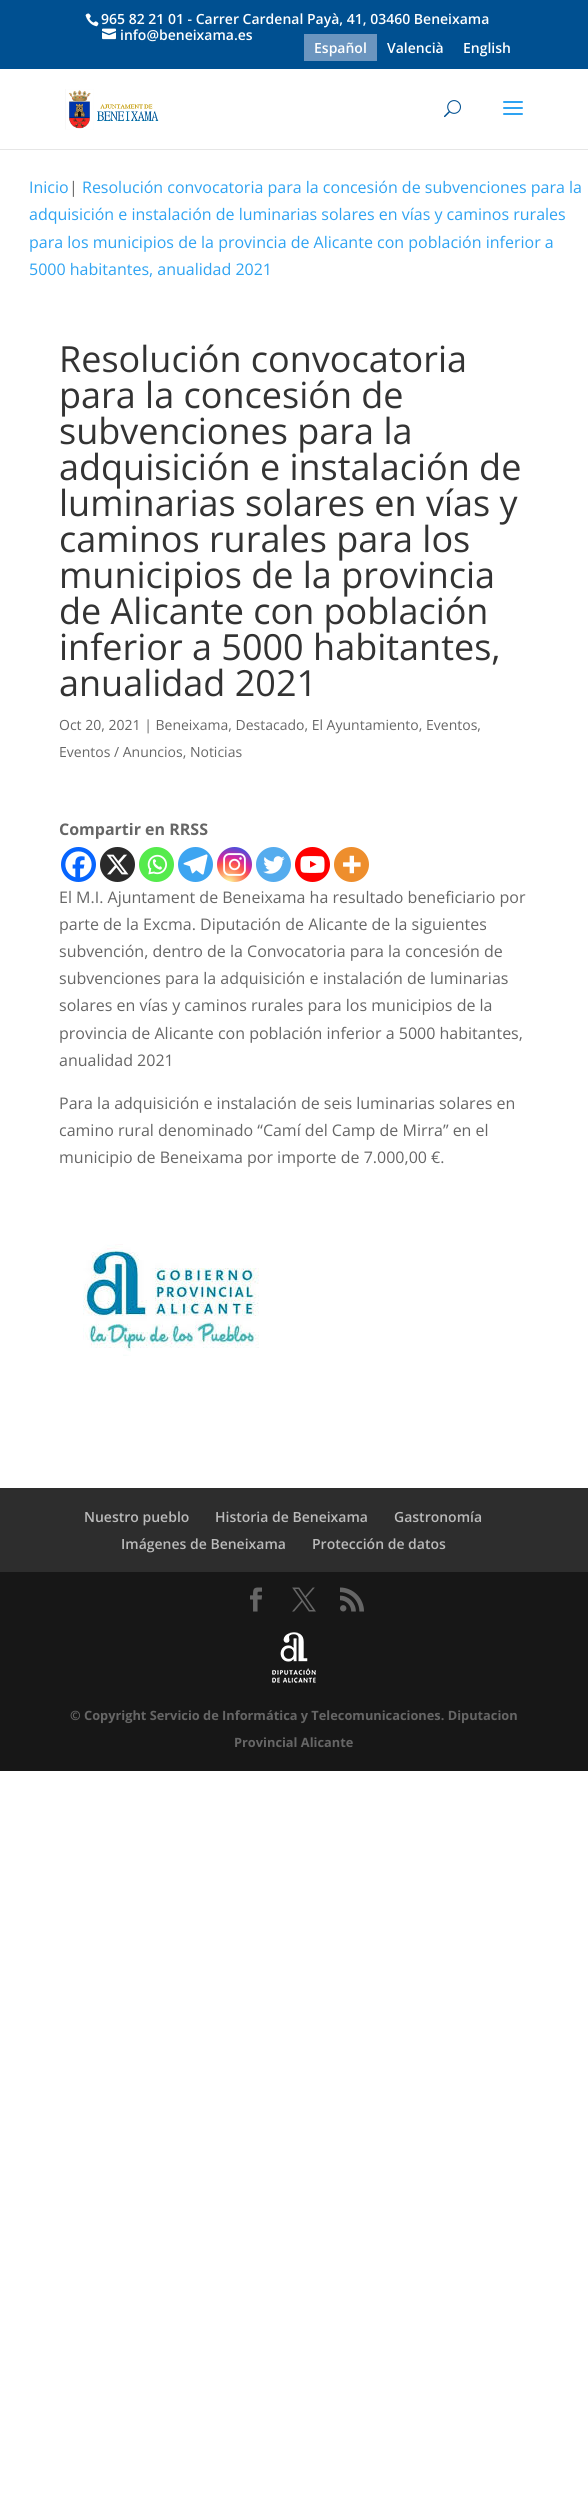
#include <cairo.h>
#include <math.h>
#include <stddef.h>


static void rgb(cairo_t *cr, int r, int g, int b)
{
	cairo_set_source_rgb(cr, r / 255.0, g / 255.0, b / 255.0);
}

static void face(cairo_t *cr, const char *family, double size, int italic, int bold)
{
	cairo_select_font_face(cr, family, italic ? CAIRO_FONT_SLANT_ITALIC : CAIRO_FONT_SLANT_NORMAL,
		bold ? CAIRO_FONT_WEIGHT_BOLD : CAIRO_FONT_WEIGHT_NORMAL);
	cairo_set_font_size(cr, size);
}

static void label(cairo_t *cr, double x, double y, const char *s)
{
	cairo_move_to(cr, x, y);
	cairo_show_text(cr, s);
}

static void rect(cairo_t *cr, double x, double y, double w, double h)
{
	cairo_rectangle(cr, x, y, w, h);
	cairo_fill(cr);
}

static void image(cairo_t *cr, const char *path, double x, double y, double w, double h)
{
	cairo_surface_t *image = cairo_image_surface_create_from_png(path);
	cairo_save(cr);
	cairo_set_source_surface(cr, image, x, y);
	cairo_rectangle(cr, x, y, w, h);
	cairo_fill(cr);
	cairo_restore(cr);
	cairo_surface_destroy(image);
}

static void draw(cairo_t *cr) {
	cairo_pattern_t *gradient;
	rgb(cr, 255, 255, 255);
	cairo_paint(cr);
	rgb(cr, 0, 80, 145);
	rect(cr, 0, 0, 588, 69);
	image(cr, "image0.png", 85, 13, 14, 14);
	face(cr, "Open Sans SemiBold", 14, 0, 0);
	rgb(cr, 255, 255, 255);
	label(cr, 101, 24, "965 82 21 01 - Carrer Cardenal Payà, 41, 03460 Beneixama");
	image(cr, "image1.png", 102, 28, 14, 12);
	label(cr, 120, 40, "info@beneixama.es");
	rgb(cr, 107, 149, 191);
	rect(cr, 304, 34, 73, 27);
	rgb(cr, 255, 255, 255);
	label(cr, 314, 53, "Español");
	label(cr, 387, 53, "Valencià");
	label(cr, 463, 53, "English");
	rgb(cr, 230, 230, 230);
	rect(cr, 0, 149, 588, 1);
	image(cr, "image2.png", 65, 89, 94, 41);
	image(cr, "image3.png", 444, 100, 17, 18);
	image(cr, "image4.png", 503, 101, 20, 14);
	face(cr, "Open Sans", 16, 0, 0);
	rgb(cr, 46, 163, 242);
	label(cr, 29, 193, "Inicio");
	rgb(cr, 102, 102, 102);
	label(cr, 69, 193, "|");
	rgb(cr, 46, 163, 242);
	label(cr, 82, 193, "Resolución convocatoria para la concesión de subvenciones para la");
	label(cr, 29, 220, "adquisición e instalación de luminarias solares en vías y caminos rurales");
	label(cr, 29, 248, "para los municipios de la provincia de Alicante con población inferior a");
	label(cr, 29, 275, "5000 habitantes, anualidad 2021");
	face(cr, "Open Sans", 36, 0, 0);
	rgb(cr, 51, 51, 51);
	label(cr, 59, 372, "Resolución convocatoria");
	label(cr, 59, 408, "para la concesión de");
	label(cr, 59, 444, "subvenciones para la");
	label(cr, 59, 480, "adquisición e instalación de");
	label(cr, 59, 516, "luminarias solares en vías y");
	label(cr, 59, 552, "caminos rurales para los");
	label(cr, 59, 588, "municipios de la provincia");
	label(cr, 59, 624, "de Alicante con población");
	label(cr, 59, 660, "inferior a 5000 habitantes,");
	label(cr, 59, 696, "anualidad 2021");
	face(cr, "Open Sans", 14, 0, 0);
	rgb(cr, 102, 102, 102);
	label(cr, 59, 730, "Oct 20, 2021 | Beneixama, Destacado, El Ayuntamiento, Eventos,");
	label(cr, 59, 757, "Eventos / Anuncios, Noticias");
	face(cr, "Open Sans", 16, 0, 1);
	label(cr, 59, 835, "Compartir en RRSS");
	rgb(cr, 7, 101, 254);
	cairo_new_path(cr);
	cairo_arc(cr, 78.5, 864.5, 17.5, 0, 2 * M_PI);
	cairo_fill(cr);
	image(cr, "image5.png", 65, 851, 27, 27);
	rgb(cr, 42, 42, 42);
	cairo_arc(cr, 117.5, 864.5, 17.5, 0, 2 * M_PI);
	cairo_fill(cr);
	image(cr, "image6.png", 106, 854, 23, 21);
	rgb(cr, 85, 235, 76);
	cairo_arc(cr, 156.5, 864.5, 17.5, 0, 2 * M_PI);
	cairo_fill(cr);
	image(cr, "image7.png", 147, 854, 20, 21);
	rgb(cr, 61, 165, 241);
	cairo_arc(cr, 195.5, 864.5, 17.5, 0, 2 * M_PI);
	cairo_fill(cr);
	image(cr, "image8.png", 183, 854, 25, 21);
	gradient = cairo_pattern_create_radial(228, 884, 0, 228, 884, 45);
	cairo_pattern_add_color_stop_rgba(gradient, 0, 0.992, 0.957, 0.592, 1);
	cairo_pattern_add_color_stop_rgba(gradient, 0.05, 0.992, 0.957, 0.592, 1);
	cairo_pattern_add_color_stop_rgba(gradient, 0.45, 0.992, 0.349, 0.286, 1);
	cairo_pattern_add_color_stop_rgba(gradient, 0.6, 0.839, 0.141, 0.624, 1);
	cairo_pattern_add_color_stop_rgba(gradient, 0.9, 0.157, 0.353, 0.922, 1);
	cairo_set_source(cr, gradient);
	cairo_pattern_destroy(gradient);
	cairo_arc(cr, 234.5, 864.5, 17.5, 0, 2 * M_PI);
	cairo_fill(cr);
	image(cr, "image9.png", 223, 853, 23, 23);
	rgb(cr, 85, 172, 238);
	cairo_arc(cr, 273.5, 864.5, 17.5, 0, 2 * M_PI);
	cairo_fill(cr);
	image(cr, "image10.png", 263, 856, 22, 18);
	rgb(cr, 255, 0, 0);
	cairo_arc(cr, 312.5, 864.5, 17.5, 0, 2 * M_PI);
	cairo_fill(cr);
	image(cr, "image11.png", 300, 856, 25, 17);
	rgb(cr, 238, 142, 45);
	cairo_arc(cr, 351.5, 864.5, 17.5, 0, 2 * M_PI);
	cairo_fill(cr);
	image(cr, "image12.png", 343, 855, 18, 19);
	face(cr, "Open Sans", 16, 0, 0);
	rgb(cr, 102, 102, 102);
	label(cr, 59, 903, "El M.I. Ajuntament de Beneixama ha resultado beneficiario por");
	label(cr, 59, 930, "parte de la Excma. Diputación de Alicante de la siguientes");
	label(cr, 59, 957, "subvención, dentro de la Convocatoria para la concesión de");
	label(cr, 59, 984, "subvenciones para la adquisición e instalación de luminarias");
	label(cr, 59, 1011, "solares en vías y caminos rurales para los municipios de la");
	label(cr, 59, 1039, "provincia de Alicante con población inferior a 5000 habitantes,");
	label(cr, 59, 1066, "anualidad 2021");
	label(cr, 59, 1109, "Para la adquisición e instalación de seis luminarias solares en");
	label(cr, 59, 1136, "camino rural denominado “Camí del Camp de Mirra” en el");
	label(cr, 59, 1163, "municipio de Beneixama por importe de 7.000,00 €.");
	image(cr, "image13.png", 83, 1244, 176, 112);
	rgb(cr, 45, 45, 45);
	rect(cr, 0, 1488, 588, 84);
	face(cr, "Open Sans SemiBold", 14, 0, 0);
	rgb(cr, 187, 187, 187);
	label(cr, 84, 1522, "Nuestro pueblo");
	label(cr, 215, 1522, "Historia de Beneixama");
	label(cr, 394, 1522, "Gastronomía");
	label(cr, 121, 1549, "Imágenes de Beneixama");
	label(cr, 312, 1549, "Protección de datos");
	rgb(cr, 23, 23, 23);
	rect(cr, 0, 1572, 588, 199);
	image(cr, "image14.png", 250, 1587, 12, 25);
	image(cr, "image15.png", 292, 1587, 24, 25);
	image(cr, "image16.png", 340, 1587, 24, 25);
	image(cr, "image17.png", 272, 1632, 44, 51);
	face(cr, "Open Sans", 12.8, 0, 1);
	rgb(cr, 102, 102, 102);
	label(cr, 70, 1720, "© Copyright Servicio de Informática y Telecomunicaciones. Diputacion");
	label(cr, 234, 1747, "Provincial Alicante");
}

int main(void) {
	cairo_surface_t *surface = cairo_image_surface_create(CAIRO_FORMAT_RGB24, 588, 2505);
	cairo_t *cr = cairo_create(surface);
	cairo_font_options_t *options = cairo_font_options_create();
	cairo_font_options_set_hint_metrics(options, CAIRO_HINT_METRICS_OFF);
	cairo_font_options_set_hint_style(options, CAIRO_HINT_STYLE_NONE);
	cairo_set_font_options(cr, options);
	cairo_set_miter_limit(cr, 4);
	draw(cr);
	cairo_surface_write_to_png(surface, "render.png");
	cairo_font_options_destroy(options);
	cairo_destroy(cr);
	cairo_surface_destroy(surface);
	return 0;
}
